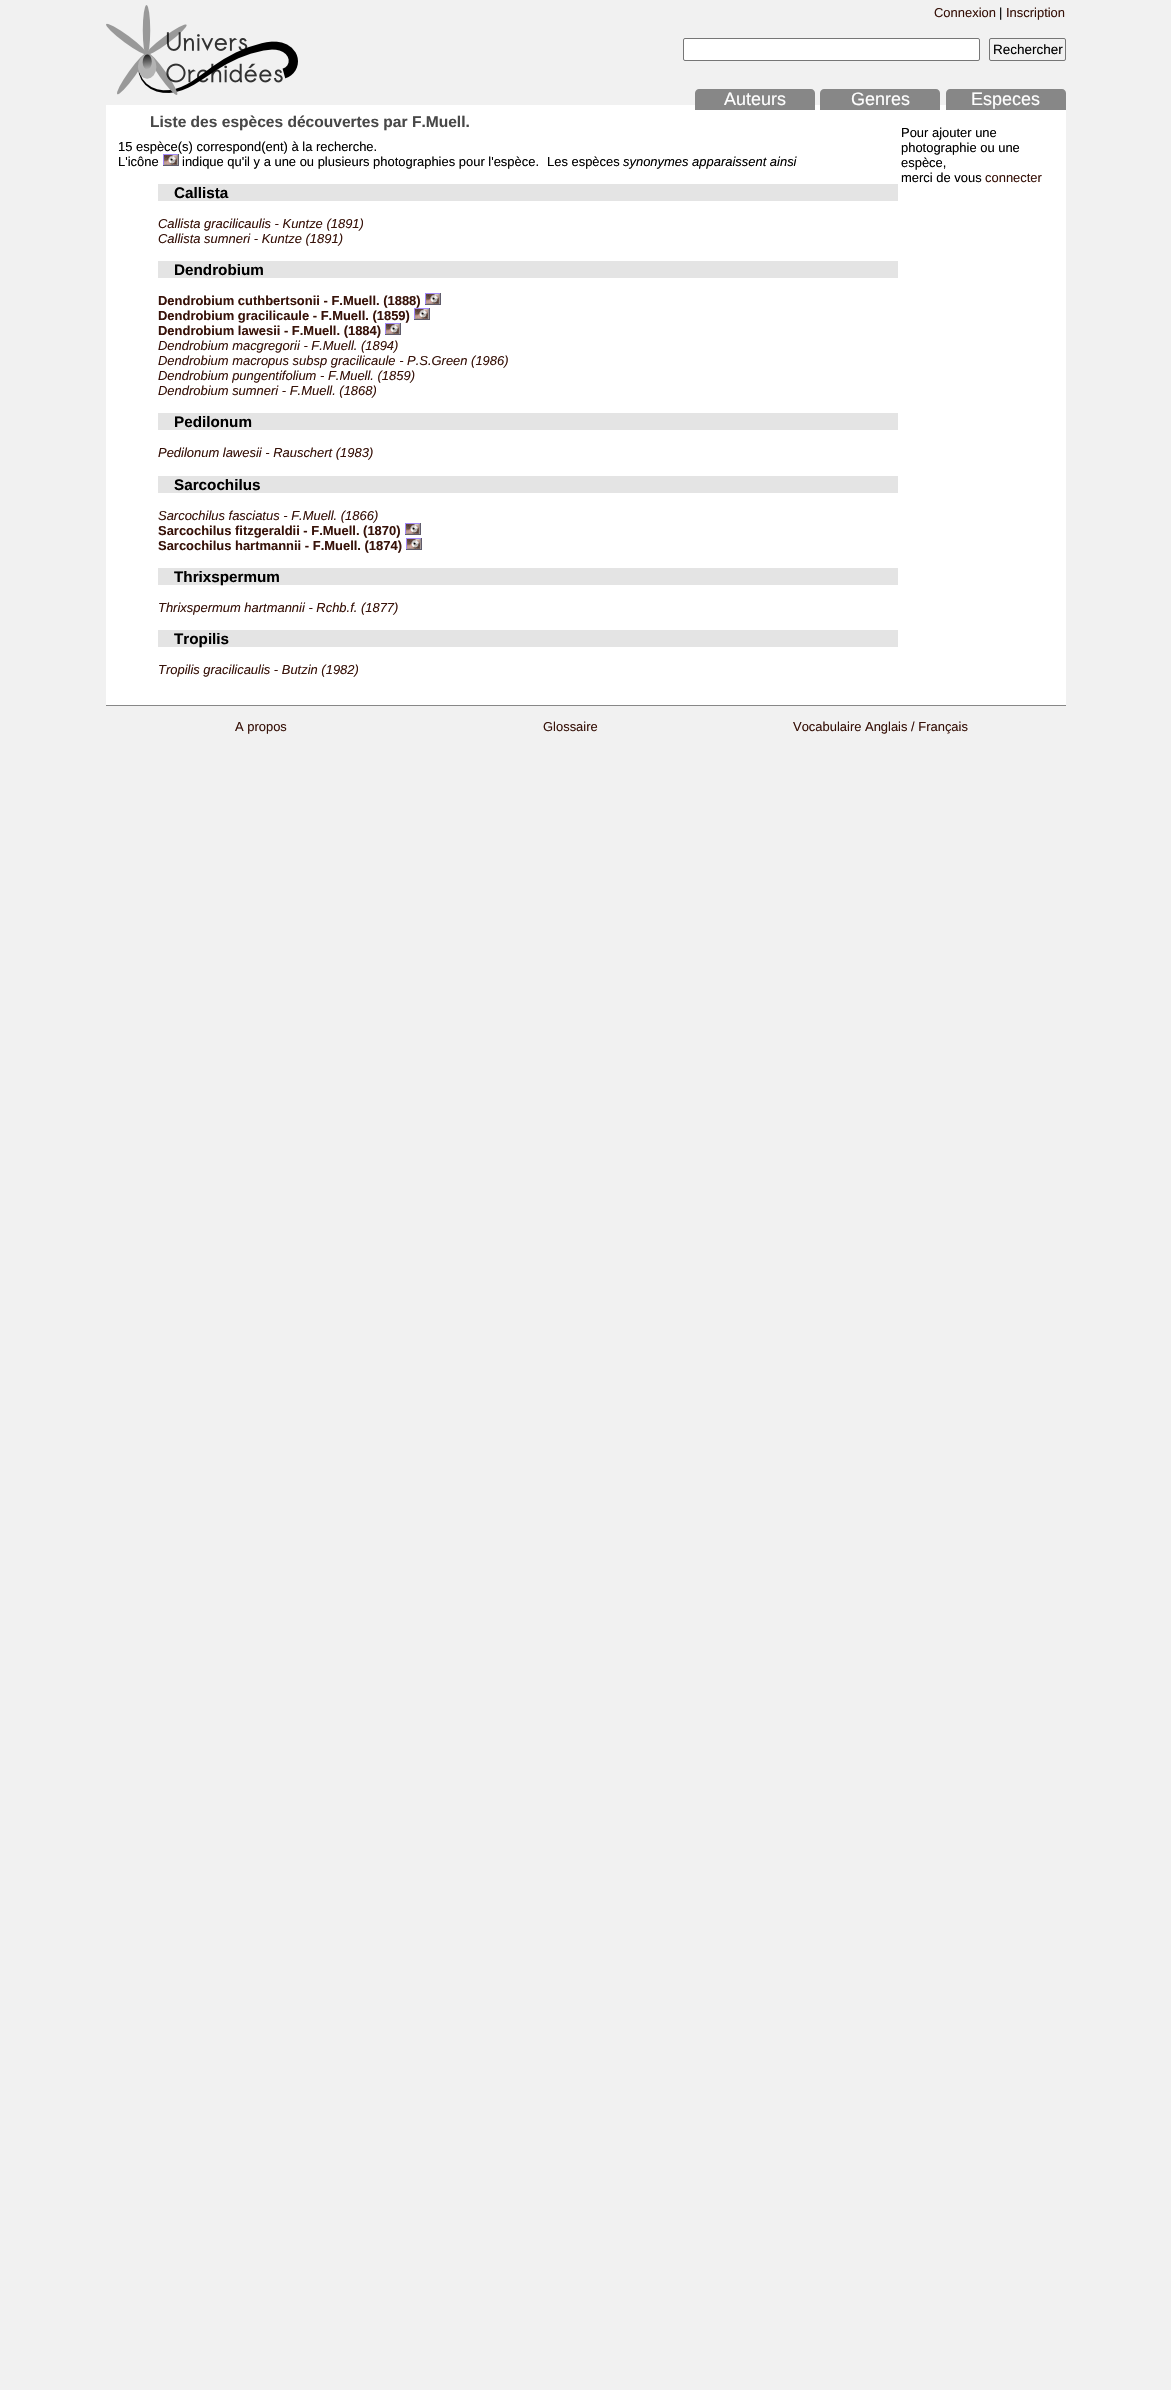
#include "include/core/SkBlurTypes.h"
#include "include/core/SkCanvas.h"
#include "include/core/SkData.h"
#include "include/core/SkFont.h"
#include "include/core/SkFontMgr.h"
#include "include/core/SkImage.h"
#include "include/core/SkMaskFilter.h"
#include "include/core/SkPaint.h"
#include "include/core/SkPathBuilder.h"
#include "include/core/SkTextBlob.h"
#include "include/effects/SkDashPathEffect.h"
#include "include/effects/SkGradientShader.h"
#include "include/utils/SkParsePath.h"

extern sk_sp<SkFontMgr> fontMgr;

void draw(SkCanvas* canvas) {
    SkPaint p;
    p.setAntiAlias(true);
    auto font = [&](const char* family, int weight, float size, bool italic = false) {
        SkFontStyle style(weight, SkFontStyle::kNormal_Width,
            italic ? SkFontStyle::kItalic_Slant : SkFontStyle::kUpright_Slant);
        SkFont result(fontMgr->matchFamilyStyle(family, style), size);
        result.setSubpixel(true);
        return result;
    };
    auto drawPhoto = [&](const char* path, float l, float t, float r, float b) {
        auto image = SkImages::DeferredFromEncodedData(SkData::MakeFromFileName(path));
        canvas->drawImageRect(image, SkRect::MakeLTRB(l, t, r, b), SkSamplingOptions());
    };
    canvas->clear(0xFFF1F1F1);
    drawPhoto("media/1.png", 106, 5, 298, 95);
    auto font1 = font("Liberation Sans", 400, 12.95f);
    p.setColor(0xFF371209);
    canvas->drawString("Connexion", 934, 17, font1, p);
    p.setColor(0xFF000000);
    canvas->drawString("|", 999, 17, font1, p);
    p.setColor(0xFF371209);
    canvas->drawString("Inscription", 1006, 17, font1, p);
    p.setColor(0xFFFFFFFF);
    canvas->drawRoundRect(SkRect::MakeLTRB(683.5f, 38.5f, 979.5f, 60.5f), 1.5f, 1.5f, p);
    p.setStyle(SkPaint::kStroke_Style);
    p.setStrokeWidth(1);
    p.setColor(0xFF767676);
    canvas->drawRoundRect(SkRect::MakeLTRB(683.5f, 38.5f, 979.5f, 60.5f), 1.5f, 1.5f, p);
    canvas->drawRoundRect(SkRect::MakeLTRB(989.5f, 38.5f, 1065.5f, 60.5f), 1.5f, 1.5f, p);
    auto font2 = font("Liberation Sans", 400, 13.5f);
    p.setStyle(SkPaint::kFill_Style);
    p.setColor(0xFF000000);
    canvas->drawString("Rechercher", 993, 54, font2, p);
    p.setColor(0xFFFFFFFF);
    canvas->drawRect(SkRect::MakeLTRB(106, 105, 1066, 705), p);
    p.setColor(0xFF878787);
    canvas->drawPath(SkPathBuilder().moveTo(699, 89).lineTo(811, 89).cubicTo(813, 89, 815, 91, 815, 93).lineTo(815, 110).lineTo(695, 110).lineTo(695, 93).cubicTo(695, 91, 697, 89, 699, 89).close().detach(), p);
    auto font3 = font("Liberation Sans", 400, 18);
    p.setColor(0xFFFFFFFF);
    canvas->drawString("Auteurs", 724, 105, font3, p);
    p.setColor(0xFF878787);
    canvas->drawPath(SkPathBuilder().moveTo(824, 89).lineTo(936, 89).cubicTo(938, 89, 940, 91, 940, 93).lineTo(940, 110).lineTo(820, 110).lineTo(820, 93).cubicTo(820, 91, 822, 89, 824, 89).close().detach(), p);
    p.setColor(0xFFFFFFFF);
    canvas->drawString("Genres", 851, 105, font3, p);
    p.setColor(0xFF878787);
    canvas->drawPath(SkPathBuilder().moveTo(950, 89).lineTo(1062, 89).cubicTo(1064, 89, 1066, 91, 1066, 93).lineTo(1066, 110).lineTo(946, 110).lineTo(946, 93).cubicTo(946, 91, 948, 89, 950, 89).close().detach(), p);
    p.setColor(0xFFFFFFFF);
    canvas->drawString("Especes", 971, 105, font3, p);
    auto font4 = font("Liberation Sans", 700, 15.55f);
    p.setColor(0xFF484848);
    canvas->drawString("Liste des espèces découvertes par F.Muell.", 150, 127, font4, p);
    p.setColor(0xFF000000);
    canvas->drawString("15 espèce(s) correspond(ent) à la recherche.", 118, 151, font1, p);
    canvas->drawString("L'icône", 118, 166, font1, p);
    drawPhoto("media/2.png", 163, 154, 179, 166);
    canvas->drawString("indique qu'il y a une ou plusieurs photographies pour l'espèce.", 182, 166, font1, p);
    canvas->drawString("Les espèces", 547, 166, font1, p);
    auto font5 = font("Liberation Sans", 400, 12.95f, true);
    canvas->drawString("synonymes apparaissent ainsi", 623, 166, font5, p);
    p.setColor(0xFFE4E4E4);
    canvas->drawRect(SkRect::MakeLTRB(158, 184, 898, 201), p);
    auto font6 = font("Liberation Sans", 700, 15.25f);
    p.setColor(0xFF000000);
    canvas->drawString("Callista", 174, 198, font6, p);
    p.setColor(0xFF371209);
    canvas->drawString("Callista gracilicaulis - Kuntze (1891)", 158, 228, font5, p);
    canvas->drawString("Callista sumneri - Kuntze (1891)", 158, 243, font5, p);
    p.setColor(0xFFE4E4E4);
    canvas->drawRect(SkRect::MakeLTRB(158, 261, 898, 278), p);
    p.setColor(0xFF000000);
    canvas->drawString("Dendrobium", 174, 275, font6, p);
    auto font7 = font("Liberation Sans", 700, 12.95f);
    p.setColor(0xFF371209);
    canvas->drawString("Dendrobium cuthbertsonii - F.Muell. (1888)", 158, 305, font7, p);
    drawPhoto("media/2.png", 425, 293, 441, 305);
    canvas->drawString("Dendrobium gracilicaule - F.Muell. (1859)", 158, 320, font7, p);
    drawPhoto("media/2.png", 414, 308, 430, 320);
    canvas->drawString("Dendrobium lawesii - F.Muell. (1884)", 158, 335, font7, p);
    drawPhoto("media/2.png", 385, 323, 401, 335);
    {
        const struct { const char* s; float x, y; } items[] = {
            {"Dendrobium macgregorii - F.Muell. (1894)", 158, 350},
            {"Dendrobium macropus subsp gracilicaule - P.S.Green (1986)", 158, 365},
            {"Dendrobium pungentifolium - F.Muell. (1859)", 158, 380},
            {"Dendrobium sumneri - F.Muell. (1868)", 158, 395},
        };
        for (auto [s, x, y] : items) {
            canvas->drawString(s, x, y, font5, p);
        }
    }
    p.setColor(0xFFE4E4E4);
    canvas->drawRect(SkRect::MakeLTRB(158, 413, 898, 430), p);
    p.setColor(0xFF000000);
    canvas->drawString("Pedilonum", 174, 427, font6, p);
    p.setColor(0xFF371209);
    canvas->drawString("Pedilonum lawesii - Rauschert (1983)", 158, 457, font5, p);
    p.setColor(0xFFE4E4E4);
    canvas->drawRect(SkRect::MakeLTRB(158, 476, 898, 493), p);
    p.setColor(0xFF000000);
    canvas->drawString("Sarcochilus", 174, 490, font6, p);
    p.setColor(0xFF371209);
    canvas->drawString("Sarcochilus fasciatus - F.Muell. (1866)", 158, 520, font5, p);
    canvas->drawString("Sarcochilus fitzgeraldii - F.Muell. (1870)", 158, 535, font7, p);
    drawPhoto("media/2.png", 405, 523, 421, 535);
    canvas->drawString("Sarcochilus hartmannii - F.Muell. (1874)", 158, 550, font7, p);
    drawPhoto("media/2.png", 406, 538, 422, 550);
    p.setColor(0xFFE4E4E4);
    canvas->drawRect(SkRect::MakeLTRB(158, 568, 898, 585), p);
    p.setColor(0xFF000000);
    canvas->drawString("Thrixspermum", 174, 582, font6, p);
    p.setColor(0xFF371209);
    canvas->drawString("Thrixspermum hartmannii - Rchb.f. (1877)", 158, 612, font5, p);
    p.setColor(0xFFE4E4E4);
    canvas->drawRect(SkRect::MakeLTRB(158, 630, 898, 647), p);
    p.setColor(0xFF000000);
    canvas->drawString("Tropilis", 174, 644, font6, p);
    p.setColor(0xFF371209);
    canvas->drawString("Tropilis gracilicaulis - Butzin (1982)", 158, 674, font5, p);
    p.setColor(0xFF000000);
    {
        const struct { const char* s; float x, y; } items[] = {
            {"Pour ajouter une", 901, 137},
            {"photographie ou une", 901, 152},
            {"espèce,", 901, 167},
            {"merci de vous", 901, 182},
        };
        for (auto [s, x, y] : items) {
            canvas->drawString(s, x, y, font1, p);
        }
    }
    p.setColor(0xFF371209);
    canvas->drawString("connecter", 985, 182, font1, p);
    p.setColor(0xFF878787);
    canvas->drawRect(SkRect::MakeLTRB(106, 705, 1066, 706), p);
    p.setColor(0xFF371209);
    {
        const struct { const char* s; float x, y; } items[] = {
            {"A propos", 235, 731},
            {"Glossaire", 543, 731},
            {"Vocabulaire Anglais / Français", 793, 731},
        };
        for (auto [s, x, y] : items) {
            canvas->drawString(s, x, y, font1, p);
        }
    }
}
